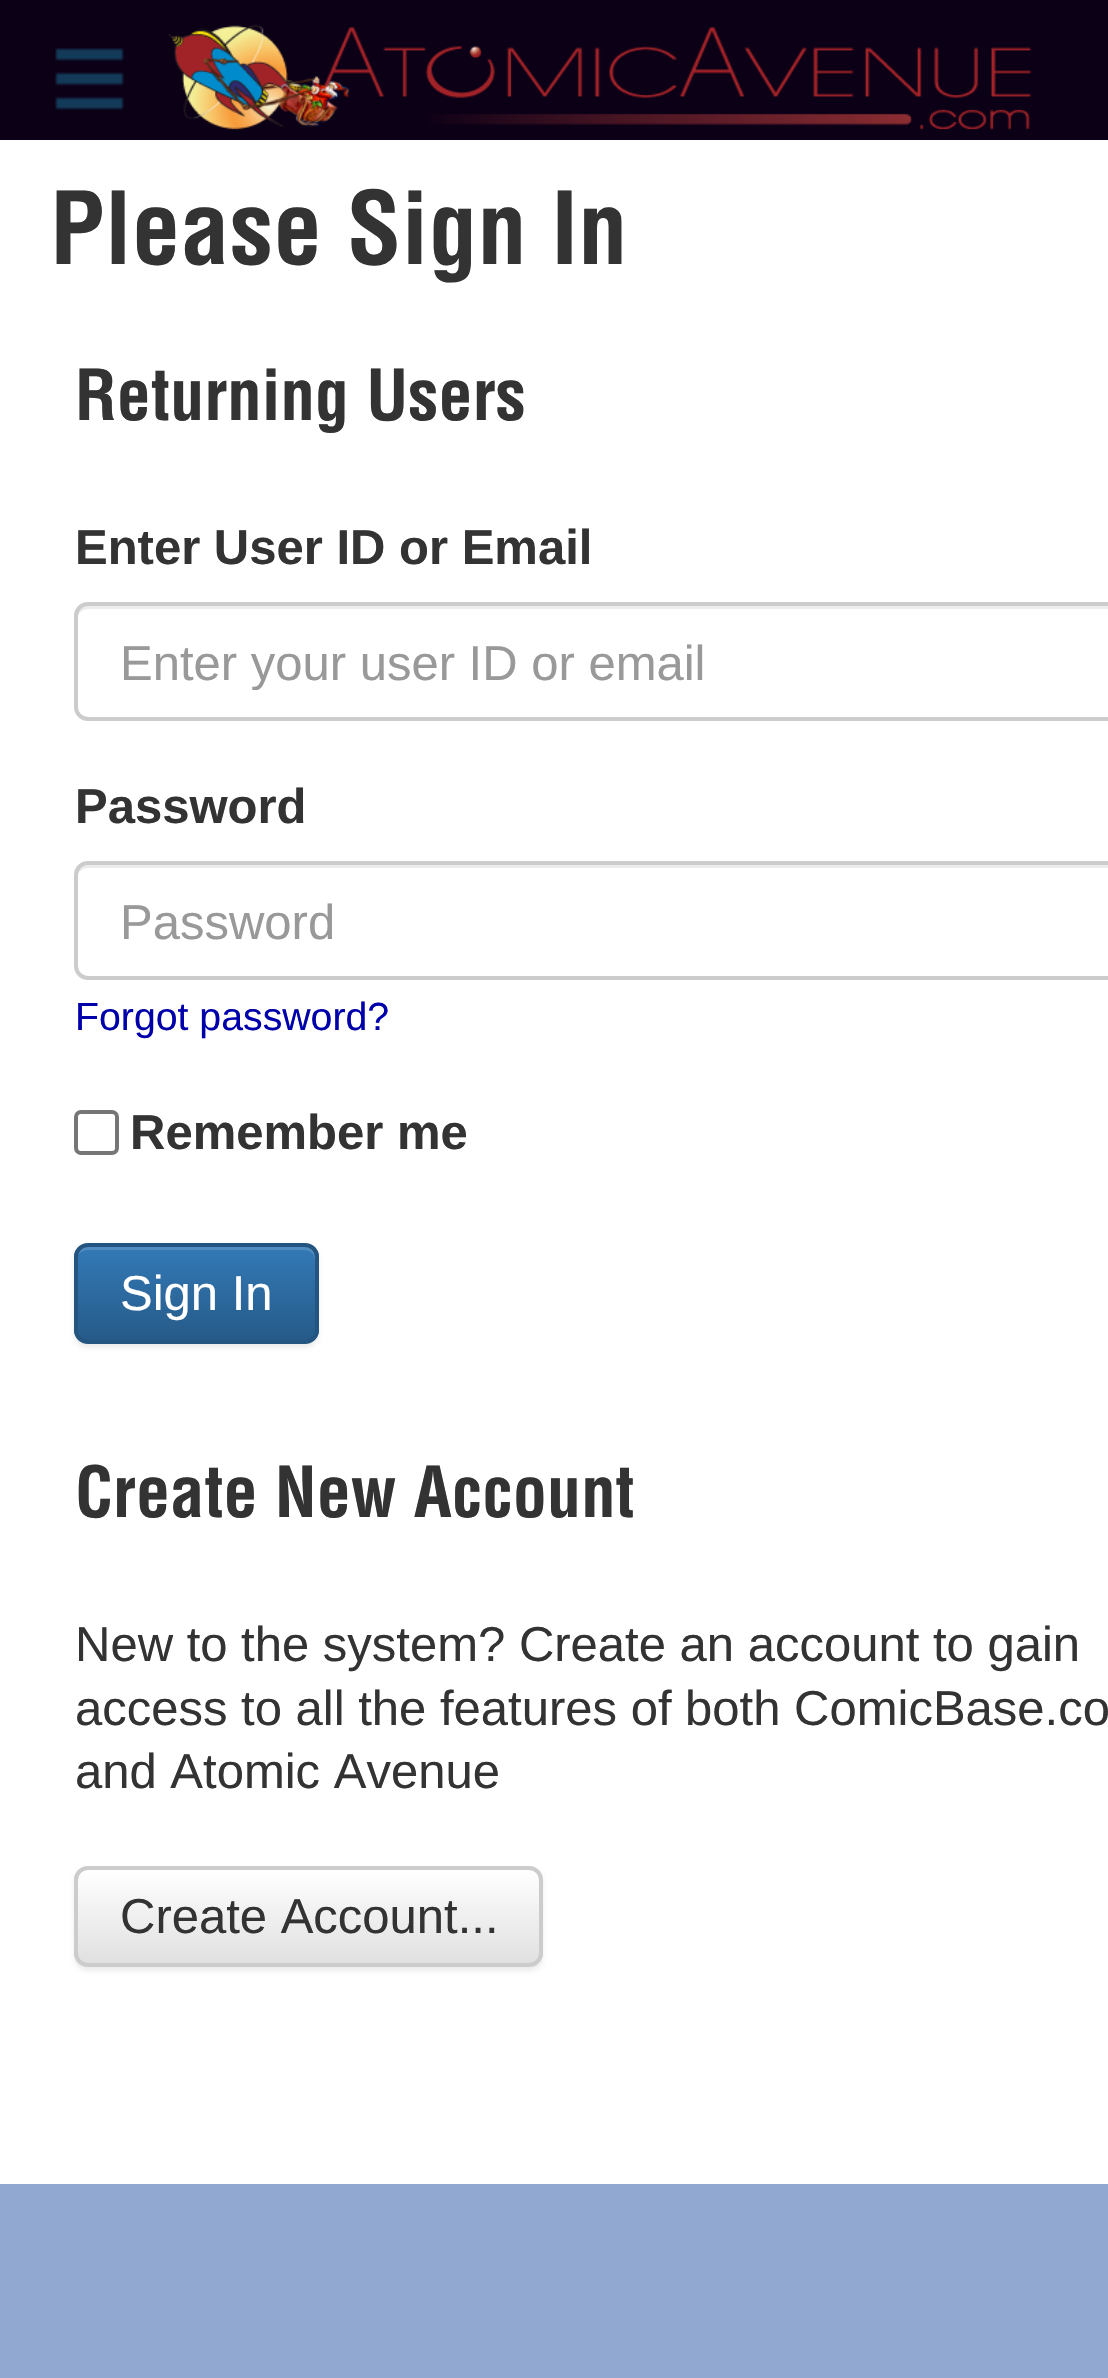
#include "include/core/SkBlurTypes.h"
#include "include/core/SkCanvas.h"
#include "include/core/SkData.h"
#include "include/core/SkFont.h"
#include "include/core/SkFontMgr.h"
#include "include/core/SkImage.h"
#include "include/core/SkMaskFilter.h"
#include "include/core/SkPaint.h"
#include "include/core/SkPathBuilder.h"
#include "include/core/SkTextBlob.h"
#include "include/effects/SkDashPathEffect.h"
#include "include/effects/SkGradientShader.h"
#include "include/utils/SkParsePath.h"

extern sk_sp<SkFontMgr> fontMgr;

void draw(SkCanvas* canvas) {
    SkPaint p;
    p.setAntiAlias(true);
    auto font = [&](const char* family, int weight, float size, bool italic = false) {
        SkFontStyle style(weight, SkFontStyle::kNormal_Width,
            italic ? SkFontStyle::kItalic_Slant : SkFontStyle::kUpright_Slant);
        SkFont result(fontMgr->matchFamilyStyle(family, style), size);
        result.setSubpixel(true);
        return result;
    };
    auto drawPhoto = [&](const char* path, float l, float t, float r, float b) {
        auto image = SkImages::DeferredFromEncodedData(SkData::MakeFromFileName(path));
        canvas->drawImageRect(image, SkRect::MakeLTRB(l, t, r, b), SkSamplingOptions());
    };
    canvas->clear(0xFF91A8D1);
    p.setColor(0xFFFFFFFF);
    canvas->drawRect(SkRect::MakeLTRB(0, 140, 1108, 2184), p);
    p.setColor(0xFF0C0016);
    canvas->drawRect(SkRect::MakeLTRB(0, 0, 1108, 140), p);
    drawPhoto("media/1.png", 55, 48, 124, 110);
    drawPhoto("media/2.png", 167, 24, 1032, 130);
    auto font1 = font("Helvetica", 700, 98);
    p.setColor(0xFF333333);
    canvas->drawString("Please Sign In", 50, 264, font1, p);
    auto font2 = font("Helvetica", 700, 68.5f);
    canvas->drawString("Returning Users", 75, 420, font2, p);
    auto font3 = font("Liberation Sans", 700, 49);
    canvas->drawString("Enter User ID or Email", 75, 564, font3, p);
    p.setColor(0xFFECECEC);
    canvas->drawPath(SkPathBuilder().moveTo(88, 609).lineTo(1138, 609).cubicTo(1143, 609, 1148, 614, 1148, 620).cubicTo(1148, 613, 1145, 606, 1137, 606).lineTo(88, 606).cubicTo(80, 606, 77, 613, 77, 620).cubicTo(77, 614, 82, 609, 88, 609).close().detach(), p);
    p.setStyle(SkPaint::kStroke_Style);
    p.setStrokeWidth(4);
    p.setColor(0xFFCCCCCC);
    canvas->drawRoundRect(SkRect::MakeLTRB(76, 604, 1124, 719), 12, 12, p);
    canvas->save();
    canvas->clipRect(SkRect::MakeLTRB(119, 634, 1106, 690));
    auto font4 = font("Liberation Sans", 400, 49);
    p.setStyle(SkPaint::kFill_Style);
    p.setColor(0xFF999999);
    canvas->drawString("Enter your user ID or email", 120, 680, font4, p);
    canvas->restore();
    p.setColor(0xFF333333);
    canvas->drawString("Password", 75, 823, font3, p);
    p.setColor(0xFFECECEC);
    canvas->drawPath(SkPathBuilder().moveTo(88, 868).lineTo(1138, 868).cubicTo(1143, 868, 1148, 873, 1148, 878).lineTo(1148, 876).cubicTo(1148, 870, 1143, 865, 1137, 865).lineTo(88, 865).cubicTo(82, 865, 77, 870, 77, 876).lineTo(77, 878).cubicTo(77, 873, 82, 868, 88, 868).close().detach(), p);
    p.setStyle(SkPaint::kStroke_Style);
    p.setColor(0xFFCCCCCC);
    canvas->drawRoundRect(SkRect::MakeLTRB(76, 863, 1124, 978), 12, 12, p);
    p.setStyle(SkPaint::kFill_Style);
    p.setColor(0xFF999999);
    canvas->drawString("Password", 120, 939, font4, p);
    auto font5 = font("Liberation Sans", 400, 39.25f);
    p.setColor(0xFF0000AA);
    canvas->drawString("Forgot password?", 75, 1030, font5, p);
    p.setStyle(SkPaint::kStroke_Style);
    p.setColor(0xFF767676);
    canvas->drawRoundRect(SkRect::MakeLTRB(76, 1112, 117, 1153), 5, 5, p);
    p.setStyle(SkPaint::kFill_Style);
    p.setColor(0xFF333333);
    canvas->drawString("Remember me", 130, 1149, font3, p);
    p.setColor(0x12000000);
    p.setMaskFilter(SkMaskFilter::MakeBlur(kNormal_SkBlurStyle, 2));
    canvas->drawRoundRect(SkRect::MakeLTRB(74, 1246, 319, 1348), 14, 14, p);
    p.setMaskFilter(nullptr);
    canvas->save();
    canvas->clipPath(SkPathBuilder().moveTo(88, 1243).lineTo(305, 1243).cubicTo(312.5f, 1243, 319, 1249.5f, 319, 1257).lineTo(319, 1330).cubicTo(319, 1337.5f, 312.5f, 1344, 305, 1344).lineTo(88, 1344).cubicTo(80.5f, 1344, 74, 1337.5f, 74, 1330).lineTo(74, 1257).cubicTo(74, 1249.5f, 80.5f, 1243, 88, 1243).close().detach(), true);
    {
        const SkColor colors[] = {0xFF337AB7, 0xFF265A88};
        const float stops[] = {0, 1};
        const SkPoint ends[] = {{196, 1246}, {196, 1341}};
        p.setShader(SkGradientShader::MakeLinear(ends, colors, stops, 2, SkTileMode::kClamp));
        p.setAlpha(255);
    }
    canvas->drawRect(SkRect::MakeLTRB(74, 1246, 319, 1341), p);
    canvas->restore();
    p.setShader(nullptr);
    p.setColor(0x26FFFFFF);
    canvas->drawPath(SkPathBuilder().moveTo(88, 1250).lineTo(304, 1250).cubicTo(310, 1250, 315, 1254, 315, 1260).lineTo(315, 1257).cubicTo(315, 1251, 310, 1246, 304, 1246).lineTo(88, 1246).cubicTo(82, 1246, 77, 1251, 77, 1257).lineTo(77, 1260).cubicTo(77, 1254, 82, 1250, 88, 1250).close().detach(), p);
    p.setStyle(SkPaint::kStroke_Style);
    p.setColor(0xFF245580);
    canvas->drawRoundRect(SkRect::MakeLTRB(76, 1245, 317, 1342), 12, 12, p);
    p.setStyle(SkPaint::kFill_Style);
    p.setColor(0xFFFFFFFF);
    canvas->drawString("Sign In", 120, 1310, font4, p);
    p.setColor(0xFF333333);
    canvas->drawString("Create New Account", 75, 1517, font2, p);
    {
        const struct { const char* s; float x, y; } items[] = {
            {"New to the system? Create an account to gain", 75, 1661},
            {"access to all the features of both ComicBase.co", 75, 1725},
            {"and Atomic Avenue", 75, 1788},
        };
        for (auto [s, x, y] : items) {
            canvas->drawString(s, x, y, font4, p);
        }
    }
    p.setColor(0x12000000);
    p.setMaskFilter(SkMaskFilter::MakeBlur(kNormal_SkBlurStyle, 2));
    canvas->drawRoundRect(SkRect::MakeLTRB(74, 1869, 543, 1971), 14, 14, p);
    p.setMaskFilter(nullptr);
    canvas->save();
    canvas->clipPath(SkPathBuilder().moveTo(88, 1866).lineTo(529, 1866).cubicTo(536.5f, 1866, 543, 1872.5f, 543, 1880).lineTo(543, 1953).cubicTo(543, 1960.5f, 536.5f, 1967, 529, 1967).lineTo(88, 1967).cubicTo(80.5f, 1967, 74, 1960.5f, 74, 1953).lineTo(74, 1880).cubicTo(74, 1872.5f, 80.5f, 1866, 88, 1866).close().detach(), true);
    {
        const SkColor colors[] = {0xFFFFFFFF, 0xFFE0E0E0};
        const float stops[] = {0, 1};
        const SkPoint ends[] = {{308, 1869}, {308, 1964}};
        p.setShader(SkGradientShader::MakeLinear(ends, colors, stops, 2, SkTileMode::kClamp));
        p.setAlpha(255);
    }
    canvas->drawRect(SkRect::MakeLTRB(74, 1869, 543, 1964), p);
    canvas->restore();
    p.setStyle(SkPaint::kStroke_Style);
    p.setShader(nullptr);
    p.setColor(0xFFCCCCCC);
    canvas->drawRoundRect(SkRect::MakeLTRB(76, 1868, 541, 1965), 12, 12, p);
    p.setStyle(SkPaint::kFill_Style);
    p.setColor(0xFF333333);
    canvas->drawString("Create Account...", 120, 1933, font4, p);
}
